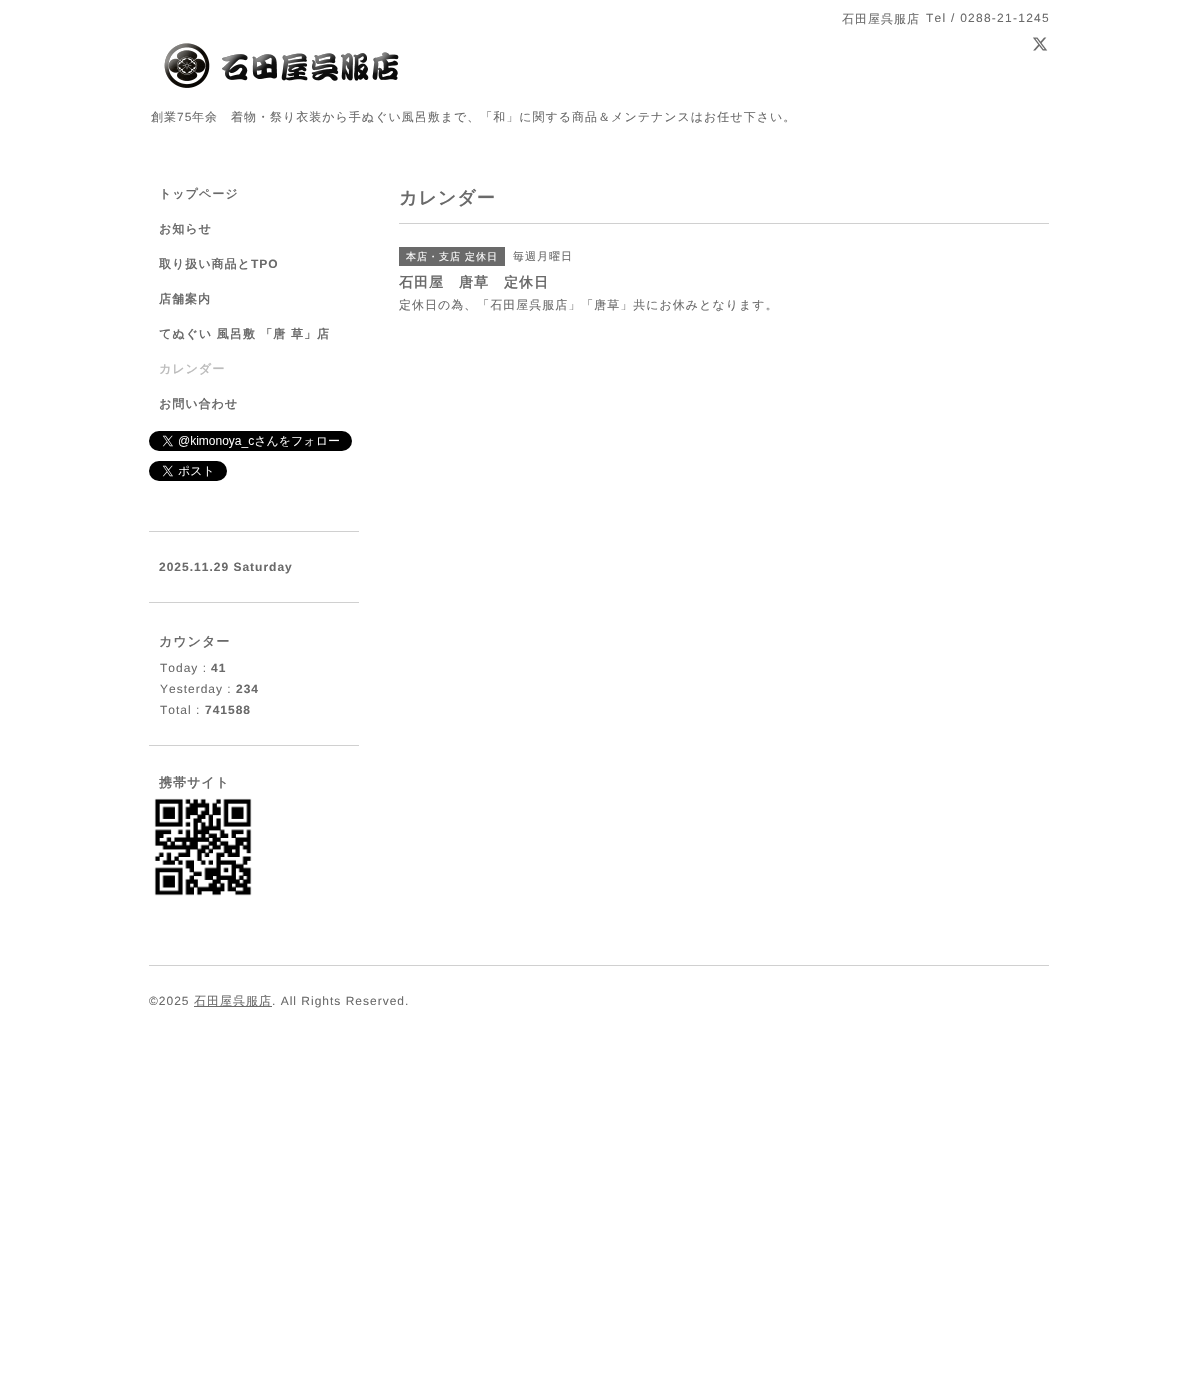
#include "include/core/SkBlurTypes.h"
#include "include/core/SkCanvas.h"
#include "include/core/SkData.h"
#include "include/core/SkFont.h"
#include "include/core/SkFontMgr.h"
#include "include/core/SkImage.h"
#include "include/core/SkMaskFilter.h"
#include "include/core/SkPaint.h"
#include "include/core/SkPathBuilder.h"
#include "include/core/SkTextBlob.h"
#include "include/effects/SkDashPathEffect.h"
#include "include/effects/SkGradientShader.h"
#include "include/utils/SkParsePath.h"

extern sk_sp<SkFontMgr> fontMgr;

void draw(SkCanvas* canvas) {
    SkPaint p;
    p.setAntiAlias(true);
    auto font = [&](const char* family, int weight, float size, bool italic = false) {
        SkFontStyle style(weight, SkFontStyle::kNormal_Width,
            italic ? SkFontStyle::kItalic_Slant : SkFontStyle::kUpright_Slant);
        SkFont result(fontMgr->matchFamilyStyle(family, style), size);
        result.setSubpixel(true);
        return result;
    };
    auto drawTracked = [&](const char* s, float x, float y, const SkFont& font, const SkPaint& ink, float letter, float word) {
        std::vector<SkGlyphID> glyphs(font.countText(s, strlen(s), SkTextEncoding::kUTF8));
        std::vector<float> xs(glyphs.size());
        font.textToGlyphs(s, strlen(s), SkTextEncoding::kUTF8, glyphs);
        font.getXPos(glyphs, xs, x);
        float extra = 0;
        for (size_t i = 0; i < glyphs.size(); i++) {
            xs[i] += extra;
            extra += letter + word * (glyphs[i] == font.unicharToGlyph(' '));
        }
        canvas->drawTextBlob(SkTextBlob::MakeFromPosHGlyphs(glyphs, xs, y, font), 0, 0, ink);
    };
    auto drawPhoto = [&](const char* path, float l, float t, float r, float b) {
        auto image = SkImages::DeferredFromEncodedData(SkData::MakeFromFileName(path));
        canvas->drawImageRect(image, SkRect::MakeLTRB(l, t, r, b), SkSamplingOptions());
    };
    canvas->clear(0xFFFFFFFF);
    auto font1 = font("WenQuanYi Zen Hei", 500, 12);
    p.setColor(0xFF6A6A6A);
    drawTracked("石田屋呉服店", 842, 23, font1, p, 1, 0);
    auto font2 = font("Liberation Sans", 400, 12);
    drawTracked("Tel / 0288-21-1245", 926, 22, font2, p, 1.25f, 0);
    drawPhoto("media/1.png", 1033, 37, 1048, 51);
    drawPhoto("media/2.png", 164, 43, 399, 88);
    drawTracked("創業", 151, 121, font1, p, 1, 0);
    drawTracked("75", 177, 121, font2, p, 1, 0);
    drawTracked("年余　着物・祭り衣装から手ぬぐい風呂敷まで、「和」に関する商品＆メンテナンスはお任せ下さい。", 192, 121, font1, p, 1, 0);
    auto font3 = font("WenQuanYi Zen Hei", 700, 12);
    {
        const struct { const char* s; float x, y; } items[] = {
            {"トップページ", 159, 198},
            {"お知らせ", 159, 233},
            {"取り扱い商品と", 159, 268},
        };
        for (auto [s, x, y] : items) {
            drawTracked(s, x, y, font3, p, 1, 0);
        }
    }
    auto font4 = font("Liberation Sans", 700, 12);
    drawTracked("TPO", 251, 268, font4, p, 1, 0);
    drawTracked("店舗案内", 159, 303, font3, p, 1, 0);
    drawTracked("てぬぐい 風呂敷 「唐 草」店", 159, 338, font3, p, 1, 0);
    p.setColor(0xFFBCBCBC);
    drawTracked("カレンダー", 159, 373, font3, p, 1, 0);
    p.setColor(0xFF6A6A6A);
    drawTracked("お問い合わせ", 159, 408, font3, p, 1, 0);
    drawPhoto("media/3.png", 149, 431, 352, 451);
    drawPhoto("media/4.png", 149, 461, 227, 481);
    auto font5 = font("WenQuanYi Zen Hei", 700, 18);
    drawTracked("カレンダー", 399, 204, font5, p, 1, 0);
    p.setColor(0xFFD0D0D0);
    canvas->drawRect(SkRect::MakeLTRB(399, 223, 1049, 224), p);
    p.setColor(0xFF6A6A6A);
    canvas->drawRect(SkRect::MakeLTRB(399, 247, 505, 266), p);
    auto font6 = font("WenQuanYi Zen Hei", 500, 10);
    p.setColor(0xFFFFFFFF);
    drawTracked("本店・支店 定休日", 406, 260, font6, p, 1, 0);
    auto font7 = font("WenQuanYi Zen Hei", 500, 11);
    p.setColor(0xFF6A6A6A);
    drawTracked("毎週月曜日", 513, 260, font7, p, 1, 0);
    auto font8 = font("WenQuanYi Zen Hei", 700, 14);
    drawTracked("石田屋　唐草　定休日", 399, 287, font8, p, 1, 0);
    drawTracked("定休日の為、「石田屋呉服店」「唐草」共にお休みとなります。", 399, 309, font1, p, 1, 0);
    p.setColor(0xFFD0D0D0);
    canvas->drawRect(SkRect::MakeLTRB(149, 531, 359, 532), p);
    canvas->drawRect(SkRect::MakeLTRB(149, 602, 359, 603), p);
    p.setColor(0xFF6A6A6A);
    drawTracked("2025.11.29 Saturday", 159, 571, font4, p, 1, 0);
    p.setColor(0xFFD0D0D0);
    canvas->drawRect(SkRect::MakeLTRB(149, 745, 359, 746), p);
    auto font9 = font("WenQuanYi Zen Hei", 700, 13);
    p.setColor(0xFF6A6A6A);
    drawTracked("カウンター", 159, 646, font9, p, 1, 0);
    drawTracked("Today :", 160, 672, font2, p, 1, 0);
    drawTracked("41", 211, 672, font4, p, 1, 0);
    drawTracked("Yesterday :", 160, 693, font2, p, 1, 0);
    drawTracked("234", 236, 693, font4, p, 1, 0);
    drawTracked("Total :", 160, 714, font2, p, 1, 0);
    drawTracked("741588", 205, 714, font4, p, 1, 0);
    drawTracked("携帯サイト", 159, 787, font9, p, 1, 0);
    drawPhoto("media/5.png", 154, 798, 252, 896);
    p.setColor(0xFFD0D0D0);
    canvas->drawRect(SkRect::MakeLTRB(149, 965, 1049, 966), p);
    p.setColor(0xFF6A6A6A);
    drawTracked("©2025", 149, 1005, font2, p, 1, 0);
    canvas->drawRect(SkRect::MakeLTRB(194, 1006, 272, 1007), p);
    drawTracked("石田屋呉服店", 194, 1005, font1, p, 1, 0);
    drawTracked(". All Rights Reserved.", 272, 1005, font2, p, 1, 0);
}
